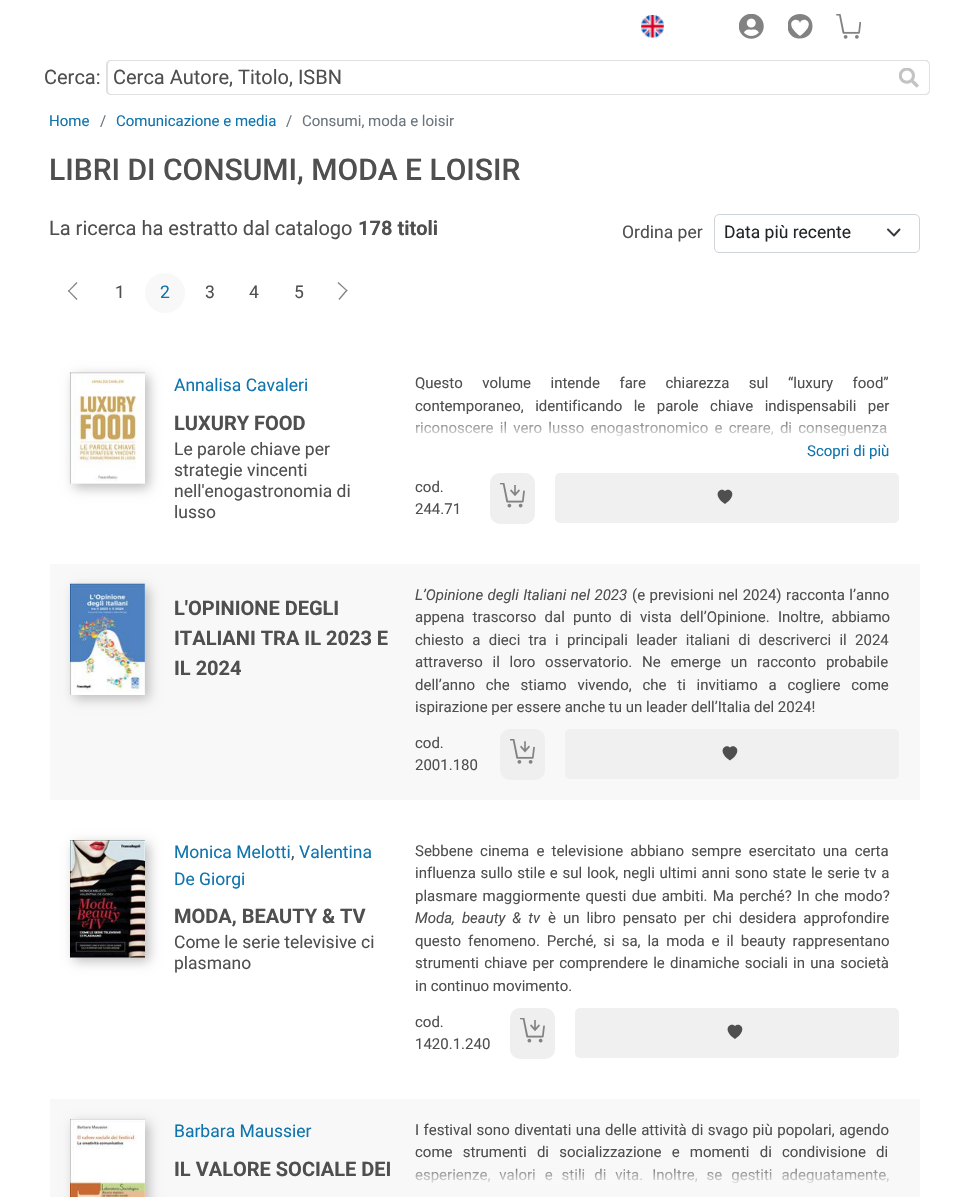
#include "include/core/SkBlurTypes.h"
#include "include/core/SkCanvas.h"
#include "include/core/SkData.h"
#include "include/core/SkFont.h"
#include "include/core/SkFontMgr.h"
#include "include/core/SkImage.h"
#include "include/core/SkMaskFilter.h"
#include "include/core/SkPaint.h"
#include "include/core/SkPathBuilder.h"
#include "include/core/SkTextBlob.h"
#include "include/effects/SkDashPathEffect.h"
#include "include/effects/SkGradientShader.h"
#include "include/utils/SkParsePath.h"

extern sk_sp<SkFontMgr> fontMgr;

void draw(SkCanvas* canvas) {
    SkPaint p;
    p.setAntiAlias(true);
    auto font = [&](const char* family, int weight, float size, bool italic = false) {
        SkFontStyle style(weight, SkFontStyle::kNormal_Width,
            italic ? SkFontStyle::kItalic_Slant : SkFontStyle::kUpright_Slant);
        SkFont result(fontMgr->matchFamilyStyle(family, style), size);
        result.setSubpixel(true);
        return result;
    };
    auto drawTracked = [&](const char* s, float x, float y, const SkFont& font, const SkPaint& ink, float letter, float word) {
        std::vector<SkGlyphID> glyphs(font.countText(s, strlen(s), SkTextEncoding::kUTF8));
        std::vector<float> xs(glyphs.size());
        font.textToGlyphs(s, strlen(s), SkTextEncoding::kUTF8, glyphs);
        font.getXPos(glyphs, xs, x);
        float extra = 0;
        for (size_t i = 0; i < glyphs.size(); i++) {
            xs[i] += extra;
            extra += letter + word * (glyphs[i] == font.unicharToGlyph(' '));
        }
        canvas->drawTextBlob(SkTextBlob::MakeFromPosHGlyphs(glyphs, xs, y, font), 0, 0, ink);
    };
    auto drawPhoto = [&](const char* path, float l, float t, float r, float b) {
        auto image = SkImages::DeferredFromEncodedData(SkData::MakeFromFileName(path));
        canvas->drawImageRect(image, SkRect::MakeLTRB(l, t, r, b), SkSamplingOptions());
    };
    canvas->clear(0xFFFFFFFF);
    drawPhoto("media/1.png", 641, 15, 664, 38);
    drawPhoto("media/2.png", 739, 14, 764, 39);
    canvas->save();
    canvas->clipRect(SkRect::MakeLTRB(788, 14, 813, 39));
    p.setColor(0xFF828282);
    canvas->drawPath(SkPathBuilder().moveTo(800, 36).cubicTo(781, 21.5f, 798.5f, 15.5f, 800, 23).cubicTo(801.5f, 15.5f, 819, 21.5f, 800, 36).close().moveTo(812.5f, 26).cubicTo(812.5f, 10, 787.5f, 10, 787.5f, 26).cubicTo(787.5f, 43, 812.5f, 42.5f, 812.5f, 26).close().detach(), p);
    canvas->restore();
    drawPhoto("media/3.png", 836, 14, 861, 39);
    auto font1 = font("Roboto", 400, 20);
    p.setColor(0xFF4F4F4F);
    canvas->drawString("Cerca:", 44, 84, font1, p);
    p.setColor(0xFFE0E0E0);
    canvas->drawPath(SkPathBuilder(SkPathFillType::kEvenOdd).moveTo(111, 60).lineTo(890, 60).lineTo(890, 95).lineTo(111, 95).cubicTo(108, 95, 106, 93, 106, 90).lineTo(106, 65).cubicTo(106, 62, 108, 60, 111, 60).close().moveTo(111, 61).lineTo(890, 61).lineTo(890, 94).lineTo(111, 94).cubicTo(109, 94, 108, 92, 108, 90).lineTo(108, 65).cubicTo(108, 63, 109, 61, 111, 61).close().detach(), p);
    p.setColor(0xFF4F4F4F);
    canvas->drawString("Cerca Autore, Titolo, ISBN", 113, 84, font1, p);
    p.setColor(0xFFE0E0E0);
    canvas->drawPath(SkPathBuilder(SkPathFillType::kEvenOdd).moveTo(890, 60).lineTo(925, 60).cubicTo(928, 60, 930, 62, 930, 65).lineTo(930, 90).cubicTo(930, 93, 928, 95, 925, 95).lineTo(890, 95).close().moveTo(890, 61).lineTo(925, 61).cubicTo(927, 61, 929, 63, 929, 65).lineTo(929, 90).cubicTo(929, 92, 927, 94, 925, 94).lineTo(890, 94).close().detach(), p);
    drawPhoto("media/4.png", 899, 68, 919, 88);
    auto font2 = font("Roboto", 400, 15);
    p.setColor(0xFF1074AD);
    canvas->drawString("Home", 49, 126, font2, p);
    p.setColor(0xFF6C757D);
    canvas->drawString("/", 100, 126, font2, p);
    p.setColor(0xFF1074AD);
    canvas->drawString("Comunicazione e media", 116, 126, font2, p);
    p.setColor(0xFF6C757D);
    canvas->drawString("/", 286, 126, font2, p);
    canvas->drawString("Consumi, moda e loisir", 302, 126, font2, p);
    auto font3 = font("Roboto", 500, 30);
    p.setColor(0xFF4F4F4F);
    canvas->drawString("LIBRI DI CONSUMI, MODA E LOISIR", 49, 180, font3, p);
    canvas->drawString("La ricerca ha estratto dal catalogo", 49, 235, font1, p);
    auto font4 = font("Roboto", 700, 20);
    canvas->drawString("178 titoli", 358, 235, font4, p);
    auto font5 = font("Roboto", 400, 17.5f);
    canvas->drawString("Ordina per", 622, 238, font5, p);
    p.setStyle(SkPaint::kStroke_Style);
    p.setStrokeWidth(1.9f);
    p.setStrokeCap(SkPaint::kRound_Cap);
    p.setStrokeJoin(SkPaint::kRound_Join);
    p.setColor(0xFF343A40);
    canvas->drawPath(SkPathBuilder().moveTo(888, 229.5f).lineTo(894, 235.5f).lineTo(899.5f, 229.5f).detach(), p);
    p.setStrokeWidth(1);
    p.setStrokeCap(SkPaint::kButt_Cap);
    p.setStrokeJoin(SkPaint::kMiter_Join);
    p.setColor(0xFFCED4DA);
    canvas->drawRoundRect(SkRect::MakeLTRB(714.5f, 214.5f, 919.5f, 252.5f), 4.5f, 4.5f, p);
    p.setStyle(SkPaint::kFill_Style);
    p.setColor(0xFF212529);
    canvas->drawString("Data più recente", 724, 238, font5, p);
    p.setColor(0xFF828282);
    canvas->drawPath(SkPathBuilder().moveTo(68.5f, 290).lineTo(77.5f, 299).lineTo(76.5f, 300).lineTo(68, 291).close().detach(), p);
    canvas->drawPath(SkPathBuilder().moveTo(76.5f, 282).lineTo(77.5f, 283).lineTo(68.5f, 292).lineTo(68, 291).close().detach(), p);
    p.setColor(0xFF4F4F4F);
    canvas->drawString("1", 115, 298, font5, p);
    p.setColor(0xFFF8F8F8);
    canvas->drawCircle(165, 293, 20, p);
    p.setColor(0xFF1074AD);
    canvas->drawString("2", 160, 298, font5, p);
    p.setColor(0xFF4F4F4F);
    {
        const struct { const char* s; float x, y; } items[] = {
            {"3", 205, 298},
            {"4", 249, 298},
            {"5", 294, 298},
        };
        for (auto [s, x, y] : items) {
            canvas->drawString(s, x, y, font5, p);
        }
    }
    p.setColor(0xFF828282);
    canvas->drawPath(SkPathBuilder().moveTo(347, 291.5f).lineTo(337.5f, 283).lineTo(338.5f, 282).lineTo(347.5f, 290.5f).close().detach(), p);
    canvas->drawPath(SkPathBuilder().moveTo(339.5f, 300).lineTo(338.5f, 299).lineTo(346.5f, 289.5f).lineTo(347.5f, 290.5f).close().detach(), p);
    p.setColor(0xFFBDBDBD);
    p.setMaskFilter(SkMaskFilter::MakeBlur(kNormal_SkBlurStyle, 5.5f));
    canvas->drawRect(SkRect::MakeLTRB(74, 376, 149, 488), p);
    p.setMaskFilter(nullptr);
    drawPhoto("media/5.png", 70, 372, 145, 484);
    p.setColor(0xFF1074AD);
    canvas->drawString("Annalisa Cavaleri", 174, 391, font5, p);
    p.setColor(0xFF4F4F4F);
    canvas->drawString("LUXURY FOOD", 174, 430, font4, p);
    {
        const struct { const char* s; float x, y; } items[] = {
            {"Le parole chiave per", 174, 455},
            {"strategie vincenti", 174, 476},
            {"nell'enogastronomia di", 174, 497},
            {"lusso", 174, 518},
        };
        for (auto [s, x, y] : items) {
            canvas->drawString(s, x, y, font5, p);
        }
    }
    drawTracked("Questo volume intende fare chiarezza sul “luxury food”", 415, 388, font2, p, 0, 15.75f);
    drawTracked("contemporaneo, identificando le parole chiave indispensabili per", 415, 411, font2, p, 0, 7.75f);
    drawTracked("riconoscere il vero lusso enogastronomico e creare, di conseguenza", 415, 433, font2, p, 0, 2.5f);
    {
        const SkColor colors[] = {0x00FFFFFF, 0xFFFFFFFF};
        const float stops[] = {0, 1};
        const SkPoint ends[] = {{652, 416}, {652, 440}};
        p.setShader(SkGradientShader::MakeLinear(ends, colors, stops, 2, SkTileMode::kClamp));
        p.setAlpha(255);
    }
    canvas->drawRect(SkRect::MakeLTRB(416, 421, 886, 437), p);
    p.setShader(nullptr);
    p.setColor(0xFF1074AD);
    canvas->drawString("Scopri di più", 807, 456, font2, p);
    p.setColor(0xFF4F4F4F);
    canvas->drawString("cod.", 415, 492, font2, p);
    canvas->drawString("244.71", 415, 514, font2, p);
    p.setColor(0xFFEFEFEF);
    canvas->drawRoundRect(SkRect::MakeLTRB(490, 473, 535, 524), 10, 10, p);
    drawPhoto("media/6.png", 500, 483, 525, 508);
    p.setColor(0xFFF0F0F0);
    canvas->drawRoundRect(SkRect::MakeLTRB(555, 473, 899, 523), 5, 5, p);
    p.setColor(0xFF4F4F4F);
    canvas->drawPath(SkPathBuilder().moveTo(725, 491).cubicTo(729.5f, 486.5f, 739, 494.5f, 725, 504).cubicTo(711, 494.5f, 720.5f, 486.5f, 725, 491).close().detach(), p);
    p.setColor(0xFFF8F8F8);
    canvas->drawRect(SkRect::MakeLTRB(50, 564, 920, 800), p);
    p.setColor(0xFFBDBDBD);
    p.setMaskFilter(SkMaskFilter::MakeBlur(kNormal_SkBlurStyle, 5.5f));
    canvas->drawRect(SkRect::MakeLTRB(74, 588, 149, 699), p);
    p.setMaskFilter(nullptr);
    drawPhoto("media/7.png", 70, 583, 145, 695);
    p.setColor(0xFF4F4F4F);
    {
        const struct { const char* s; float x, y; } items[] = {
            {"L'OPINIONE DEGLI", 174, 615},
            {"ITALIANI TRA IL 2023 E", 174, 645},
            {"IL 2024", 174, 675},
        };
        for (auto [s, x, y] : items) {
            canvas->drawString(s, x, y, font4, p);
        }
    }
    auto font6 = font("Roboto", 400, 15, true);
    drawTracked("L’Opinione degli Italiani nel 2023", 415, 600, font6, p, 0, 0.75f);
    drawTracked("(e previsioni nel 2024) racconta l’anno", 632, 600, font2, p, 0, 0.75f);
    drawTracked("appena trascorso dal punto di vista dell’Opinione. Inoltre, abbiamo", 415, 622, font2, p, 0, 4.5f);
    drawTracked("chiesto a dieci tra i principali leader italiani di descriverci il 2024", 415, 645, font2, p, 0, 4.6f);
    drawTracked("attraverso il loro osservatorio. Ne emerge un racconto probabile", 415, 667, font2, p, 0, 6);
    drawTracked("dell’anno che stiamo vivendo, che ti invitiamo a cogliere come", 415, 690, font2, p, 0, 7);
    {
        const struct { const char* s; float x, y; } items[] = {
            {"ispirazione per essere anche tu un leader dell’Italia del 2024!", 415, 712},
            {"cod.", 415, 748},
            {"2001.180", 415, 770},
        };
        for (auto [s, x, y] : items) {
            canvas->drawString(s, x, y, font2, p);
        }
    }
    p.setColor(0xFFEFEFEF);
    canvas->drawRoundRect(SkRect::MakeLTRB(500, 729, 545, 780), 10, 10, p);
    drawPhoto("media/8.png", 510, 739, 535, 764);
    p.setColor(0xFFF0F0F0);
    canvas->drawRoundRect(SkRect::MakeLTRB(565, 729, 899, 779), 5, 5, p);
    p.setColor(0xFF4F4F4F);
    canvas->drawPath(SkPathBuilder().moveTo(730, 747.5f).cubicTo(734.5f, 743, 744, 751, 730, 760.5f).cubicTo(716, 751, 725.5f, 743, 730, 747.5f).close().detach(), p);
    p.setColor(0xFFBDBDBD);
    p.setMaskFilter(SkMaskFilter::MakeBlur(kNormal_SkBlurStyle, 5.5f));
    canvas->drawRect(SkRect::MakeLTRB(74, 844, 149, 961), p);
    p.setMaskFilter(nullptr);
    drawPhoto("media/9.png", 70, 840, 145, 958);
    p.setColor(0xFF1074AD);
    canvas->drawString("Monica Melotti", 174, 858, font5, p);
    p.setColor(0xFF4F4F4F);
    canvas->drawString(",", 291, 858, font5, p);
    p.setColor(0xFF1074AD);
    canvas->drawString("Valentina", 299, 858, font5, p);
    canvas->drawString("De Giorgi", 174, 885, font5, p);
    p.setColor(0xFF4F4F4F);
    canvas->drawString("MODA, BEAUTY & TV", 174, 923, font4, p);
    canvas->drawString("Come le serie televisive ci", 174, 948, font5, p);
    canvas->drawString("plasmano", 174, 969, font5, p);
    drawTracked("Sebbene cinema e televisione abbiano sempre esercitato una certa", 415, 856, font2, p, 0, 3.5f);
    drawTracked("influenza sullo stile e sul look, negli ultimi anni sono state le serie tv a", 415, 878, font2, p, 0, 1);
    drawTracked("plasmare maggiormente questi due ambiti. Ma perché? In che modo?", 415, 901, font2, p, 0, 1.5f);
    drawTracked("Moda, beauty & tv", 415, 923, font6, p, 0, 3.25f);
    drawTracked("è un libro pensato per chi desidera approfondire", 548, 923, font2, p, 0, 3.25f);
    drawTracked("questo fenomeno. Perché, si sa, la moda e il beauty rappresentano", 415, 946, font2, p, 0, 3.25f);
    drawTracked("strumenti chiave per comprendere le dinamiche sociali in una società", 415, 968, font2, p, 0, 1.5f);
    {
        const struct { const char* s; float x, y; } items[] = {
            {"in continuo movimento.", 415, 991},
            {"cod.", 415, 1027},
            {"1420.1.240", 415, 1049},
        };
        for (auto [s, x, y] : items) {
            canvas->drawString(s, x, y, font2, p);
        }
    }
    p.setColor(0xFFEFEFEF);
    canvas->drawRoundRect(SkRect::MakeLTRB(510, 1008, 555, 1059), 10, 10, p);
    drawPhoto("media/6.png", 520, 1018, 545, 1043);
    p.setColor(0xFFF0F0F0);
    canvas->drawRoundRect(SkRect::MakeLTRB(575, 1008, 899, 1058), 5, 5, p);
    p.setColor(0xFF4F4F4F);
    canvas->drawPath(SkPathBuilder().moveTo(735, 1026).cubicTo(739.5f, 1021.5f, 749, 1029.5f, 735, 1039).cubicTo(721, 1029.5f, 730.5f, 1021.5f, 735, 1026).close().detach(), p);
    p.setColor(0xFFF8F8F8);
    canvas->drawRect(SkRect::MakeLTRB(50, 1099, 920, 1197), p);
    p.setColor(0xFFBDBDBD);
    p.setMaskFilter(SkMaskFilter::MakeBlur(kNormal_SkBlurStyle, 5.5f));
    canvas->drawRect(SkRect::MakeLTRB(74, 1123, 149, 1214), p);
    p.setMaskFilter(nullptr);
    drawPhoto("media/10.png", 70, 1119, 145, 1197);
    p.setColor(0xFF1074AD);
    canvas->drawString("Barbara Maussier", 174, 1137, font5, p);
    p.setColor(0xFF4F4F4F);
    canvas->drawString("IL VALORE SOCIALE DEI", 174, 1176, font4, p);
    drawTracked("I festival sono diventati una delle attività di svago più popolari, agendo", 415, 1135, font2, p, 0, 0.75f);
    drawTracked("come strumenti di socializzazione e momenti di condivisione di", 415, 1157, font2, p, 0, 6.5f);
    drawTracked("esperienze, valori e stili di vita. Inoltre, se gestiti adeguatamente,", 415, 1180, font2, p, 0, 5.25f);
    {
        const SkColor colors[] = {0x00F8F8F8, 0xFFF8F8F8};
        const float stops[] = {0, 1};
        const SkPoint ends[] = {{652, 1163}, {652, 1186}};
        p.setShader(SkGradientShader::MakeLinear(ends, colors, stops, 2, SkTileMode::kClamp));
        p.setAlpha(255);
    }
    canvas->drawRect(SkRect::MakeLTRB(415, 1168, 889, 1184), p);
}
